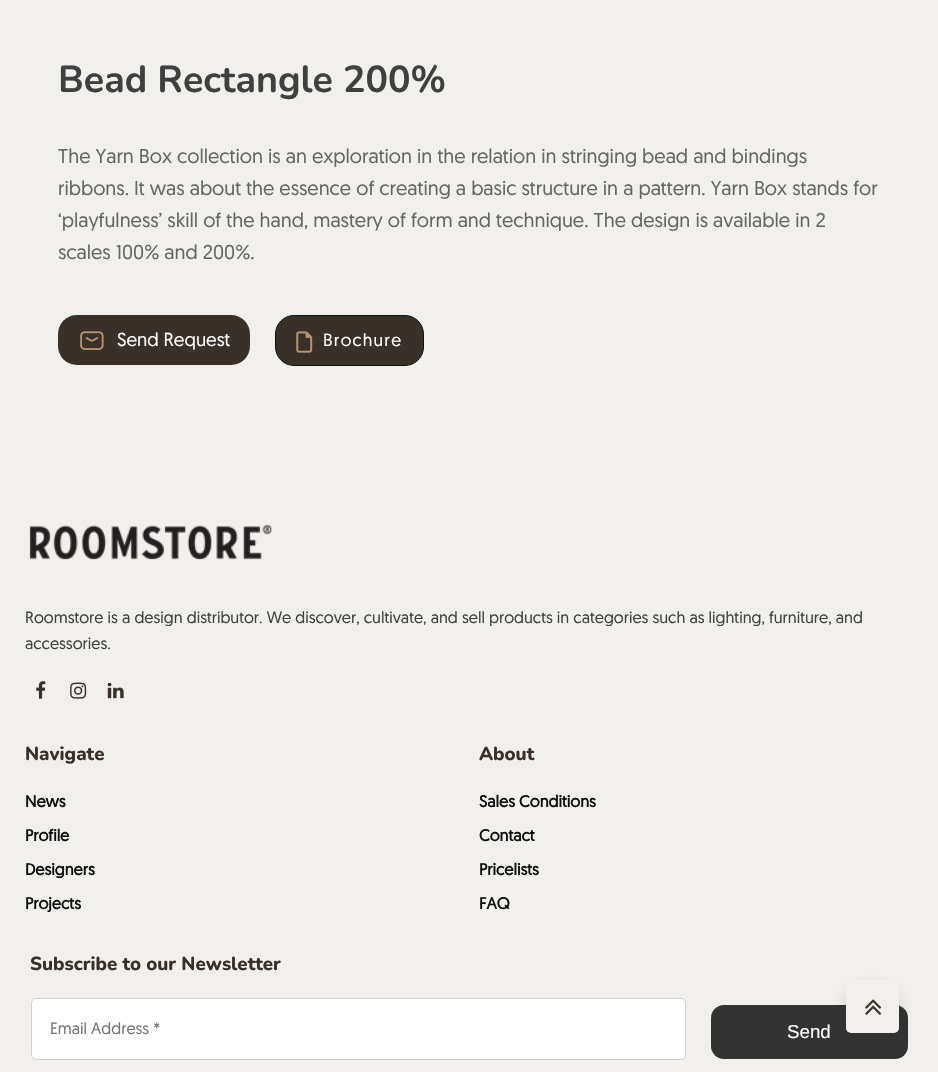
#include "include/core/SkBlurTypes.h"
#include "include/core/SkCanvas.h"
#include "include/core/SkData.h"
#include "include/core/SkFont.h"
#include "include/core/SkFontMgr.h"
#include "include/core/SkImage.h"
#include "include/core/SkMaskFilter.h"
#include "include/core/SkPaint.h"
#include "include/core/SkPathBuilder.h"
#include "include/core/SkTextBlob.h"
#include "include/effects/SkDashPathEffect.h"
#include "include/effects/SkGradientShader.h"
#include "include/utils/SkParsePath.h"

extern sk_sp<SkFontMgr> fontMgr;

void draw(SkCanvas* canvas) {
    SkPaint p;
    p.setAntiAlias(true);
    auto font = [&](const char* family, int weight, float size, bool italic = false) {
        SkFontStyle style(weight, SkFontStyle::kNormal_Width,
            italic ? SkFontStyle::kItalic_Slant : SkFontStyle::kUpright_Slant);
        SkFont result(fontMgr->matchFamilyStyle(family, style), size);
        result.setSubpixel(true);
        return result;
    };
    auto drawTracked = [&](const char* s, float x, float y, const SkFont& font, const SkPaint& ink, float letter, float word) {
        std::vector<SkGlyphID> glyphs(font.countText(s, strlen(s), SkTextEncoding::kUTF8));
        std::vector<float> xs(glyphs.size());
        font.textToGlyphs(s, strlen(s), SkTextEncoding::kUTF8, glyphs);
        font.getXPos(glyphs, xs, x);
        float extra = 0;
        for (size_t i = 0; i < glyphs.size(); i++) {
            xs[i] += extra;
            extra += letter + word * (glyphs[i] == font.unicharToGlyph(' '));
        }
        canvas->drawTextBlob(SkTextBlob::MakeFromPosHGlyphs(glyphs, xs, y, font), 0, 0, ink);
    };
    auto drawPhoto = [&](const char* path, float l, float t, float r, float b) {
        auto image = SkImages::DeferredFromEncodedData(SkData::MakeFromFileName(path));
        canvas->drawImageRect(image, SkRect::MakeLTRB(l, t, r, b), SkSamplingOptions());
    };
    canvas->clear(0xFFF2F0ED);
    auto font1 = font("Nunito", 700, 37.5f);
    p.setColor(0xFF404040);
    canvas->drawString("Bead Rectangle 200%", 58, 92, font1, p);
    auto font2 = font("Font", 400, 20);
    p.setColor(0xFF666666);
    {
        const struct { const char* s; float x, y; } items[] = {
            {"The Yarn Box collection is an exploration in the relation in stringing bead and bindings", 58, 163},
            {"ribbons. It was about the essence of creating a basic structure in a pattern. Yarn Box stands for", 58, 195},
            {"‘playfulness’ skill of the hand, mastery of form and technique. The design is available in 2", 58, 227},
            {"scales 100% and 200%.", 58, 259},
        };
        for (auto [s, x, y] : items) {
            canvas->drawString(s, x, y, font2, p);
        }
    }
    p.setColor(0xFF39302A);
    canvas->drawRoundRect(SkRect::MakeLTRB(58, 315, 250, 365), 19, 19, p);
    drawPhoto("media/1.png", 80, 331, 104, 350);
    auto font3 = font("Font", 400, 18.75f);
    p.setColor(0xFFFFFFFF);
    canvas->drawString("Send Request", 117, 346, font3, p);
    p.setColor(0xFF39302A);
    canvas->drawRoundRect(SkRect::MakeLTRB(275.5f, 315.5f, 423.5f, 365.5f), 18.5f, 18.5f, p);
    p.setStyle(SkPaint::kStroke_Style);
    p.setStrokeWidth(1);
    p.setColor(0xFF001B15);
    canvas->drawRoundRect(SkRect::MakeLTRB(275.5f, 315.5f, 423.5f, 365.5f), 18.5f, 18.5f, p);
    drawPhoto("media/2.png", 296, 331, 313, 353);
    auto font4 = font("Font", 400, 17.5f);
    p.setStyle(SkPaint::kFill_Style);
    p.setColor(0xFFFFFFFF);
    drawTracked("Brochure", 323, 346, font4, p, 1.25f, 0);
    drawPhoto("media/3.png", 29, 525, 272, 560);
    auto font5 = font("Font", 400, 16.25f);
    p.setColor(0xFF404040);
    canvas->drawString("Roomstore is a design distributor. We discover, cultivate, and sell products in categories such as lighting, furniture, and", 25, 623, font5, p);
    canvas->drawString("accessories.", 25, 649, font5, p);
    drawPhoto("media/4.png", 36, 681, 46, 699);
    drawPhoto("media/5.png", 70, 682, 87, 699);
    drawPhoto("media/6.png", 107, 682, 124, 699);
    auto font6 = font("Nunito", 800, 18.75f);
    p.setColor(0xFF39302A);
    canvas->drawString("Navigate", 25, 760, font6, p);
    auto font7 = font("Font", 700, 16.25f);
    p.setColor(0xFF0F0F0F);
    {
        const struct { const char* s; float x, y; } items[] = {
            {"News", 25, 807},
            {"Profile", 25, 841},
            {"Designers", 25, 875},
            {"Projects", 25, 909},
        };
        for (auto [s, x, y] : items) {
            canvas->drawString(s, x, y, font7, p);
        }
    }
    p.setColor(0xFF39302A);
    canvas->drawString("About", 479, 760, font6, p);
    p.setColor(0xFF0F0F0F);
    {
        const struct { const char* s; float x, y; } items[] = {
            {"Sales Conditions", 479, 807},
            {"Contact", 479, 841},
            {"Pricelists", 479, 875},
            {"FAQ", 479, 909},
        };
        for (auto [s, x, y] : items) {
            canvas->drawString(s, x, y, font7, p);
        }
    }
    p.setColor(0xFF39302A);
    canvas->drawString("Subscribe to our Newsletter", 30, 970, font6, p);
    p.setColor(0xFFFFFFFF);
    canvas->drawRoundRect(SkRect::MakeLTRB(31.5f, 998.5f, 685.5f, 1059.5f), 4.5f, 4.5f, p);
    p.setStyle(SkPaint::kStroke_Style);
    p.setColor(0xFFD3CED2);
    canvas->drawRoundRect(SkRect::MakeLTRB(31.5f, 998.5f, 685.5f, 1059.5f), 4.5f, 4.5f, p);
    p.setStyle(SkPaint::kFill_Style);
    p.setColor(0xFF757575);
    canvas->drawString("Email Address *", 50, 1034, font5, p);
    p.setColor(0xFF333333);
    canvas->drawRoundRect(SkRect::MakeLTRB(711, 1005, 908, 1059), 13, 13, p);
    auto font8 = font("Liberation Sans", 400, 18.75f);
    p.setColor(0xFFFFFFFF);
    canvas->drawString("Send", 787, 1038, font8, p);
    p.setColor(0xFF1E1E1E);
    p.setMaskFilter(SkMaskFilter::MakeBlur(kNormal_SkBlurStyle, 10.5f));
    canvas->drawRect(SkRect::MakeLTRB(859, 998, 886, 1025), p);
    p.setMaskFilter(nullptr);
    p.setColor(0xFFF2F0ED);
    canvas->drawRoundRect(SkRect::MakeLTRB(846, 980, 899, 1033), 5, 5, p);
    drawPhoto("media/7.png", 865, 999, 882, 1015);
}
